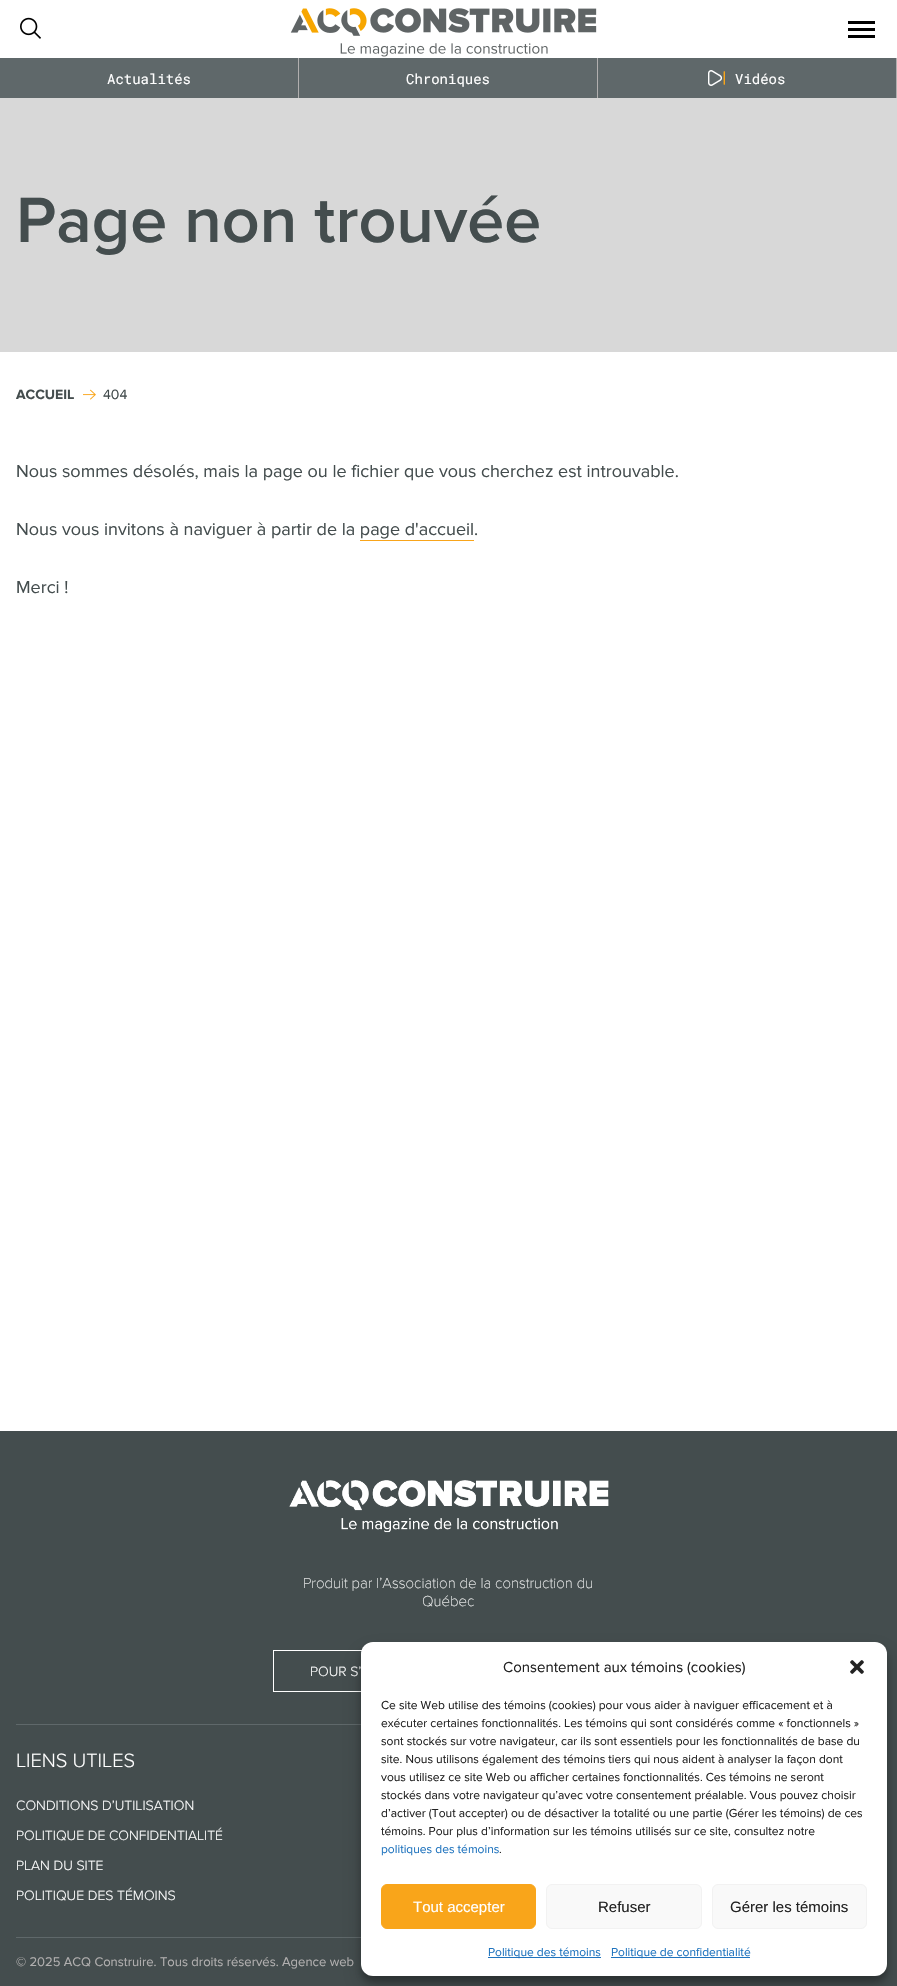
#include "include/core/SkBlurTypes.h"
#include "include/core/SkCanvas.h"
#include "include/core/SkData.h"
#include "include/core/SkFont.h"
#include "include/core/SkFontMgr.h"
#include "include/core/SkImage.h"
#include "include/core/SkMaskFilter.h"
#include "include/core/SkPaint.h"
#include "include/core/SkPathBuilder.h"
#include "include/core/SkTextBlob.h"
#include "include/effects/SkDashPathEffect.h"
#include "include/effects/SkGradientShader.h"
#include "include/utils/SkParsePath.h"

extern sk_sp<SkFontMgr> fontMgr;

void draw(SkCanvas* canvas) {
    SkPaint p;
    p.setAntiAlias(true);
    auto font = [&](const char* family, int weight, float size, bool italic = false) {
        SkFontStyle style(weight, SkFontStyle::kNormal_Width,
            italic ? SkFontStyle::kItalic_Slant : SkFontStyle::kUpright_Slant);
        SkFont result(fontMgr->matchFamilyStyle(family, style), size);
        result.setSubpixel(true);
        return result;
    };
    auto drawPhoto = [&](const char* path, float l, float t, float r, float b) {
        auto image = SkImages::DeferredFromEncodedData(SkData::MakeFromFileName(path));
        canvas->drawImageRect(image, SkRect::MakeLTRB(l, t, r, b), SkSamplingOptions());
    };
    canvas->clear(0xFFFFFFFF);
    drawPhoto("media/1.png", 20, 17, 41, 39);
    drawPhoto("media/2.png", 290, 8, 597, 57);
    {
        const struct { float l, t, r, b; SkColor color; } items[] = {
            {848, 28, 875, 31, 0xFF000000},
            {848, 21, 875, 24, 0xFF000000},
            {848, 35, 875, 38, 0xFF000000},
            {0, 58, 896, 98, 0xFF5F686A},
            {298, 58, 299, 98, 0xFFB1AFAF},
        };
        for (auto [l, t, r, b, color] : items) {
            p.setColor(color);
            canvas->drawRect(SkRect::MakeLTRB(l, t, r, b), p);
        }
    }
    auto font1 = font("Roboto Mono", 400, 14);
    p.setColor(0xFFFFFFFF);
    canvas->drawString("Actualités", 107, 84, font1, p);
    p.setColor(0xFFB1AFAF);
    canvas->drawRect(SkRect::MakeLTRB(597, 58, 598, 98), p);
    p.setColor(0xFFFFFFFF);
    canvas->drawString("Chroniques", 406, 84, font1, p);
    p.setColor(0xFFB1AFAF);
    canvas->drawRect(SkRect::MakeLTRB(896, 58, 897, 98), p);
    drawPhoto("media/3.png", 708, 70, 725, 86);
    p.setColor(0xFFFFFFFF);
    canvas->drawString("Vidéos", 735, 84, font1, p);
    p.setColor(0xFFD8D8D8);
    canvas->drawRect(SkRect::MakeLTRB(0, 98, 897, 352), p);
    auto font2 = font("Proxima Nova", 600, 66.25f);
    p.setColor(0xFF444D4E);
    canvas->drawString("Page non trouvée", 16, 242, font2, p);
    auto font3 = font("Proxima Nova", 700, 14);
    canvas->drawString("ACCUEIL", 16, 399, font3, p);
    drawPhoto("media/4.png", 83, 389, 96, 400);
    auto font4 = font("Proxima Nova", 400, 14);
    canvas->drawString("404", 103, 399, font4, p);
    auto font5 = font("Proxima Nova", 400, 18);
    {
        const struct { const char* s; float x, y; } items[] = {
            {"Nous sommes désolés, mais la page ou le fichier que vous cherchez est introuvable.", 16, 477},
            {"Nous vous invitons à naviguer à partir de la page d'accueil", 16, 535},
            {".", 474, 535},
        };
        for (auto [s, x, y] : items) {
            canvas->drawString(s, x, y, font5, p);
        }
    }
    p.setColor(0xFFF9A51A);
    canvas->drawRect(SkRect::MakeLTRB(360, 540, 474, 541), p);
    p.setColor(0xFF444D4E);
    canvas->drawString("Merci !", 16, 593, font5, p);
    canvas->drawRect(SkRect::MakeLTRB(0, 1431, 897, 1986), p);
    p.setColor(0xFF5F686A);
    canvas->drawRect(SkRect::MakeLTRB(16, 1724, 361, 1725), p);
    drawPhoto("media/5.png", 289, 1480, 609, 1533);
    auto font6 = font("Proxima Nova", 100, 15);
    p.setColor(0xFFFFFFFF);
    canvas->drawString("Produit par l’Association de la construction du", 303, 1588, font6, p);
    canvas->drawString("Québec", 422, 1606, font6, p);
    p.setStyle(SkPaint::kStroke_Style);
    p.setStrokeWidth(1);
    canvas->drawRect(SkRect::MakeLTRB(273.5f, 1650.5f, 623.5f, 1691.5f), p);
    auto font7 = font("Proxima Nova", 300, 14);
    p.setStyle(SkPaint::kFill_Style);
    canvas->drawString("POUR S’", 310, 1676, font7, p);
    auto font8 = font("Proxima Nova", 300, 20);
    canvas->drawString("LIENS UTILES", 16, 1767, font8, p);
    {
        const struct { const char* s; float x, y; } items[] = {
            {"CONDITIONS D’UTILISATION", 16, 1810},
            {"POLITIQUE DE CONFIDENTIALITÉ", 16, 1840},
            {"PLAN DU SITE", 16, 1870},
            {"POLITIQUE DES TÉMOINS", 16, 1900},
        };
        for (auto [s, x, y] : items) {
            canvas->drawString(s, x, y, font7, p);
        }
    }
    p.setColor(0xFF5F686A);
    canvas->drawRect(SkRect::MakeLTRB(16, 1937, 361, 1938), p);
    auto font9 = font("Proxima Nova", 400, 13);
    p.setColor(0xFFB1AFAF);
    canvas->drawString("© 2025 ACQ Construire. Tous droits réservés. Agence web", 16, 1966, font9, p);
    p.setColor(0x3B000000);
    p.setMaskFilter(SkMaskFilter::MakeBlur(kNormal_SkBlurStyle, 3));
    canvas->drawRoundRect(SkRect::MakeLTRB(361, 1648, 887, 1982), 12, 12, p);
    p.setMaskFilter(nullptr);
    p.setColor(0x30000000);
    p.setMaskFilter(SkMaskFilter::MakeBlur(kNormal_SkBlurStyle, 10));
    canvas->drawRoundRect(SkRect::MakeLTRB(361, 1652, 887, 1986), 12, 12, p);
    p.setMaskFilter(nullptr);
    p.setColor(0xFFFFFFFF);
    canvas->drawRoundRect(SkRect::MakeLTRB(361, 1642, 887, 1976), 12, 12, p);
    auto font10 = font("Proxima Nova", 400, 15);
    p.setColor(0xFF222222);
    canvas->drawString("Consentement aux témoins (cookies)", 503, 1672, font10, p);
    drawPhoto("media/6.png", 850, 1660, 864, 1674);
    auto font11 = font("Proxima Nova", 400, 12);
    {
        const struct { const char* s; float x, y; } items[] = {
            {"Ce site Web utilise des témoins (cookies) pour vous aider à naviguer efficacement et à", 381, 1709},
            {"exécuter certaines fonctionnalités. Les témoins qui sont considérés comme « fonctionnels »", 381, 1727},
            {"sont stockés sur votre navigateur, car ils sont essentiels pour les fonctionnalités de base du", 381, 1745},
            {"site. Nous utilisons également des témoins tiers qui nous aident à analyser la façon dont", 381, 1763},
            {"vous utilisez ce site Web ou afficher certaines fonctionnalités. Ces témoins ne seront", 381, 1781},
            {"stockés dans votre navigateur qu’avec votre consentement préalable. Vous pouvez choisir", 381, 1799},
            {"d’activer (Tout accepter) ou de désactiver la totalité ou une partie (Gérer les témoins) de ces", 381, 1817},
            {"témoins. Pour plus d’information sur les témoins utilisés sur ce site, consultez notre", 381, 1835},
        };
        for (auto [s, x, y] : items) {
            canvas->drawString(s, x, y, font11, p);
        }
    }
    p.setColor(0xFF1E73BE);
    canvas->drawString("politiques des témoins", 381, 1853, font11, p);
    p.setColor(0xFF222222);
    canvas->drawString(".", 499, 1853, font11, p);
    p.setColor(0xFFF9A51A);
    canvas->drawRoundRect(SkRect::MakeLTRB(381.5f, 1884.5f, 535.5f, 1928.5f), 5.5f, 5.5f, p);
    p.setStyle(SkPaint::kStroke_Style);
    canvas->drawRoundRect(SkRect::MakeLTRB(381.5f, 1884.5f, 535.5f, 1928.5f), 5.5f, 5.5f, p);
    auto font12 = font("Liberation Sans", 400, 15);
    p.setStyle(SkPaint::kFill_Style);
    p.setColor(0xFFFFFFFF);
    canvas->drawString("Tout accepter", 413, 1912, font12, p);
    p.setColor(0xFFF9F9F9);
    canvas->drawRoundRect(SkRect::MakeLTRB(546.5f, 1884.5f, 701.5f, 1928.5f), 5.5f, 5.5f, p);
    p.setStyle(SkPaint::kStroke_Style);
    p.setColor(0xFFF2F2F2);
    canvas->drawRoundRect(SkRect::MakeLTRB(546.5f, 1884.5f, 701.5f, 1928.5f), 5.5f, 5.5f, p);
    p.setStyle(SkPaint::kFill_Style);
    p.setColor(0xFF222222);
    canvas->drawString("Refuser", 598, 1912, font12, p);
    p.setColor(0xFFF9F9F9);
    canvas->drawRoundRect(SkRect::MakeLTRB(712.5f, 1884.5f, 866.5f, 1928.5f), 5.5f, 5.5f, p);
    p.setStyle(SkPaint::kStroke_Style);
    p.setColor(0xFFF2F2F2);
    canvas->drawRoundRect(SkRect::MakeLTRB(712.5f, 1884.5f, 866.5f, 1928.5f), 5.5f, 5.5f, p);
    p.setStyle(SkPaint::kFill_Style);
    p.setColor(0xFF222222);
    canvas->drawString("Gérer les témoins", 730, 1912, font12, p);
    p.setColor(0xFF1E73BE);
    canvas->drawRect(SkRect::MakeLTRB(488, 1957, 601, 1958), p);
    canvas->drawString("Politique des témoins", 488, 1956, font11, p);
    canvas->drawRect(SkRect::MakeLTRB(611, 1957, 750, 1958), p);
    canvas->drawString("Politique de confidentialité", 611, 1956, font11, p);
}
